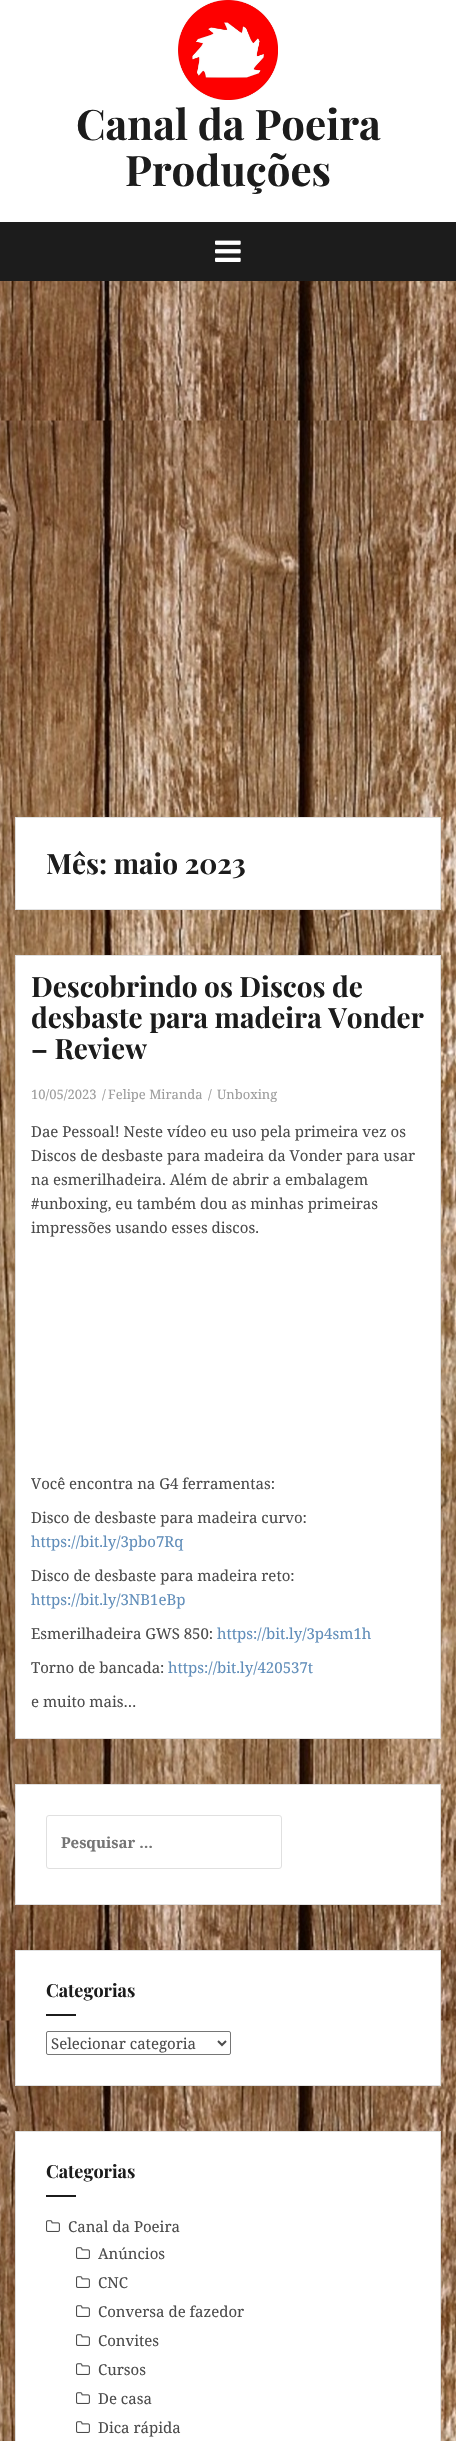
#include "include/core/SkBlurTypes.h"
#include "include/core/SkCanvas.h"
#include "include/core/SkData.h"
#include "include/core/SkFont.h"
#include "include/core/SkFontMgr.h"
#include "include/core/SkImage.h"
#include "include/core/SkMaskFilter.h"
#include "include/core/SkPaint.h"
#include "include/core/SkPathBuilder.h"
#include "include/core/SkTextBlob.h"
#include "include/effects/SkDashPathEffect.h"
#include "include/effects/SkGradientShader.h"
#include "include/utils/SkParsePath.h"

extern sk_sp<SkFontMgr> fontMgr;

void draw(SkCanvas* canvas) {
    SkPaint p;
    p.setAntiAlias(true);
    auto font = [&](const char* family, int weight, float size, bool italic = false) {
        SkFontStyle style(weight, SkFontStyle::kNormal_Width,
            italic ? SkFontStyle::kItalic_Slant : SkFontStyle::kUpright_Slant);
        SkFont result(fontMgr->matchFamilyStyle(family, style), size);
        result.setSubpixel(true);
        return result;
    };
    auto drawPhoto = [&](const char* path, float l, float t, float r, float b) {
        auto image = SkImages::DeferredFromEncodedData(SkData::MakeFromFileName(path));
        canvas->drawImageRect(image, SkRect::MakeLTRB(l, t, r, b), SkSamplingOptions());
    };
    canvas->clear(0xFFFFFFFF);
    drawPhoto("media/1.png", 0, 281, 456, 2441);
    drawPhoto("media/2.png", 178, 0, 278, 100);
    auto font1 = font("Playfair Display", 700, 42);
    p.setColor(0xFF1C1C1C);
    canvas->drawString("Canal da Poeira", 76, 140, font1, p);
    canvas->drawString("Produções", 125, 186, font1, p);
    canvas->drawRect(SkRect::MakeLTRB(0, 222, 456, 281), p);
    drawPhoto("media/3.png", 215, 240, 241, 262);
    p.setColor(0xFFFFFFFF);
    canvas->drawRect(SkRect::MakeLTRB(15.5f, 817.5f, 440.5f, 909.5f), p);
    p.setStyle(SkPaint::kStroke_Style);
    p.setStrokeWidth(1);
    p.setColor(0xFFE0E0E0);
    canvas->drawRect(SkRect::MakeLTRB(15.5f, 817.5f, 440.5f, 909.5f), p);
    auto font2 = font("Playfair Display", 700, 28);
    p.setStyle(SkPaint::kFill_Style);
    p.setColor(0xFF1C1C1C);
    canvas->drawString("Mês: maio 2023", 46, 874, font2, p);
    p.setColor(0xFFFFFFFF);
    canvas->drawRect(SkRect::MakeLTRB(15.5f, 955.5f, 440.5f, 1738.5f), p);
    p.setStyle(SkPaint::kStroke_Style);
    p.setColor(0xFFE0E0E0);
    canvas->drawRect(SkRect::MakeLTRB(15.5f, 955.5f, 440.5f, 1738.5f), p);
    p.setStyle(SkPaint::kFill_Style);
    p.setColor(0xFF1C1C1C);
    {
        const struct { const char* s; float x, y; } items[] = {
            {"Descobrindo os Discos de", 31, 997},
            {"desbaste para madeira Vonder", 31, 1028},
            {"– Review", 31, 1059},
        };
        for (auto [s, x, y] : items) {
            canvas->drawString(s, x, y, font2, p);
        }
    }
    auto font3 = font("Noto Serif", 400, 13);
    p.setColor(0xFF9D9D9D);
    {
        const struct { const char* s; float x, y; } items[] = {
            {"10/05/2023", 31, 1099},
            {"/", 102, 1099},
            {"Felipe Miranda", 108, 1099},
            {"/", 208, 1099},
            {"Unboxing", 217, 1099},
        };
        for (auto [s, x, y] : items) {
            canvas->drawString(s, x, y, font3, p);
        }
    }
    auto font4 = font("Noto Serif", 400, 15);
    p.setColor(0xFF4C4C4C);
    {
        const struct { const char* s; float x, y; } items[] = {
            {"Dae Pessoal! Neste vídeo eu uso pela primeira vez os", 31, 1137},
            {"Discos de desbaste para madeira da Vonder para usar", 31, 1161},
            {"na esmerilhadeira. Além de abrir a embalagem", 31, 1185},
            {"#unboxing, eu também dou as minhas primeiras", 31, 1209},
            {"impressões usando esses discos.", 31, 1233},
            {"Você encontra na G4 ferramentas:", 31, 1489},
            {"Disco de desbaste para madeira curvo:", 31, 1523},
        };
        for (auto [s, x, y] : items) {
            canvas->drawString(s, x, y, font4, p);
        }
    }
    p.setColor(0xFF618EBA);
    canvas->drawString("https://bit.ly/3pbo7Rq", 31, 1547, font4, p);
    p.setColor(0xFF4C4C4C);
    canvas->drawString("Disco de desbaste para madeira reto:", 31, 1581, font4, p);
    p.setColor(0xFF618EBA);
    canvas->drawString("https://bit.ly/3NB1eBp", 31, 1605, font4, p);
    p.setColor(0xFF4C4C4C);
    canvas->drawString("Esmerilhadeira GWS 850:", 31, 1639, font4, p);
    p.setColor(0xFF618EBA);
    canvas->drawString("https://bit.ly/3p4sm1h", 217, 1639, font4, p);
    p.setColor(0xFF4C4C4C);
    canvas->drawString("Torno de bancada:", 31, 1673, font4, p);
    p.setColor(0xFF618EBA);
    canvas->drawString("https://bit.ly/420537t", 168, 1673, font4, p);
    p.setColor(0xFF4C4C4C);
    canvas->drawString("e muito mais…", 31, 1707, font4, p);
    p.setColor(0xFFFFFFFF);
    canvas->drawRect(SkRect::MakeLTRB(15.5f, 1784.5f, 440.5f, 1904.5f), p);
    p.setStyle(SkPaint::kStroke_Style);
    p.setColor(0xFFE0E0E0);
    canvas->drawRect(SkRect::MakeLTRB(15.5f, 1784.5f, 440.5f, 1904.5f), p);
    canvas->drawRoundRect(SkRect::MakeLTRB(46.5f, 1815.5f, 281.5f, 1868.5f), 2.5f, 2.5f, p);
    auto font5 = font("Noto Serif", 700, 15);
    p.setStyle(SkPaint::kFill_Style);
    p.setColor(0xFF757575);
    canvas->drawString("Pesquisar …", 61, 1848, font5, p);
    p.setColor(0xFFFFFFFF);
    canvas->drawRect(SkRect::MakeLTRB(15.5f, 1950.5f, 440.5f, 2085.5f), p);
    p.setStyle(SkPaint::kStroke_Style);
    p.setColor(0xFFE0E0E0);
    canvas->drawRect(SkRect::MakeLTRB(15.5f, 1950.5f, 440.5f, 2085.5f), p);
    auto font6 = font("Playfair Display", 700, 18);
    p.setStyle(SkPaint::kFill_Style);
    p.setColor(0xFF1C1C1C);
    canvas->drawString("Categorias", 46, 1997, font6, p);
    canvas->drawRect(SkRect::MakeLTRB(46, 2014, 76, 2016), p);
    p.setStyle(SkPaint::kStroke_Style);
    p.setColor(0xFF767676);
    canvas->drawRoundRect(SkRect::MakeLTRB(46.5f, 2031.5f, 230.5f, 2054.5f), 1.5f, 1.5f, p);
    p.setStrokeWidth(2);
    p.setColor(0xFF4C4C4C);
    canvas->drawPath(SkPathBuilder().moveTo(218, 2041).lineTo(222, 2045).lineTo(226, 2041).detach(), p);
    p.setStyle(SkPaint::kFill_Style);
    canvas->drawString("Selecionar categoria", 51, 2049, font4, p);
    p.setColor(0xFFFFFFFF);
    canvas->drawRect(SkRect::MakeLTRB(15.5f, 2131.5f, 440.5f, 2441.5f), p);
    p.setStyle(SkPaint::kStroke_Style);
    p.setStrokeWidth(1);
    p.setColor(0xFFE0E0E0);
    canvas->drawRect(SkRect::MakeLTRB(15.5f, 2131.5f, 440.5f, 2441.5f), p);
    p.setStyle(SkPaint::kFill_Style);
    p.setColor(0xFF1C1C1C);
    canvas->drawString("Categorias", 46, 2178, font6, p);
    canvas->drawRect(SkRect::MakeLTRB(46, 2195, 76, 2197), p);
    drawPhoto("media/4.png", 46, 2220, 60, 2232);
    p.setColor(0xFF4C4C4C);
    canvas->drawString("Canal da Poeira", 68, 2232, font4, p);
    drawPhoto("media/4.png", 76, 2247, 90, 2259);
    canvas->drawString("Anúncios", 98, 2259, font4, p);
    drawPhoto("media/4.png", 76, 2276, 90, 2288);
    canvas->drawString("CNC", 98, 2288, font4, p);
    drawPhoto("media/4.png", 76, 2305, 90, 2317);
    canvas->drawString("Conversa de fazedor", 98, 2317, font4, p);
    drawPhoto("media/4.png", 76, 2334, 90, 2346);
    canvas->drawString("Convites", 98, 2346, font4, p);
    drawPhoto("media/4.png", 76, 2363, 90, 2375);
    canvas->drawString("Cursos", 98, 2375, font4, p);
    drawPhoto("media/4.png", 76, 2392, 90, 2404);
    canvas->drawString("De casa", 98, 2404, font4, p);
    drawPhoto("media/4.png", 76, 2421, 90, 2433);
    canvas->drawString("Dica rápida", 98, 2433, font4, p);
}
